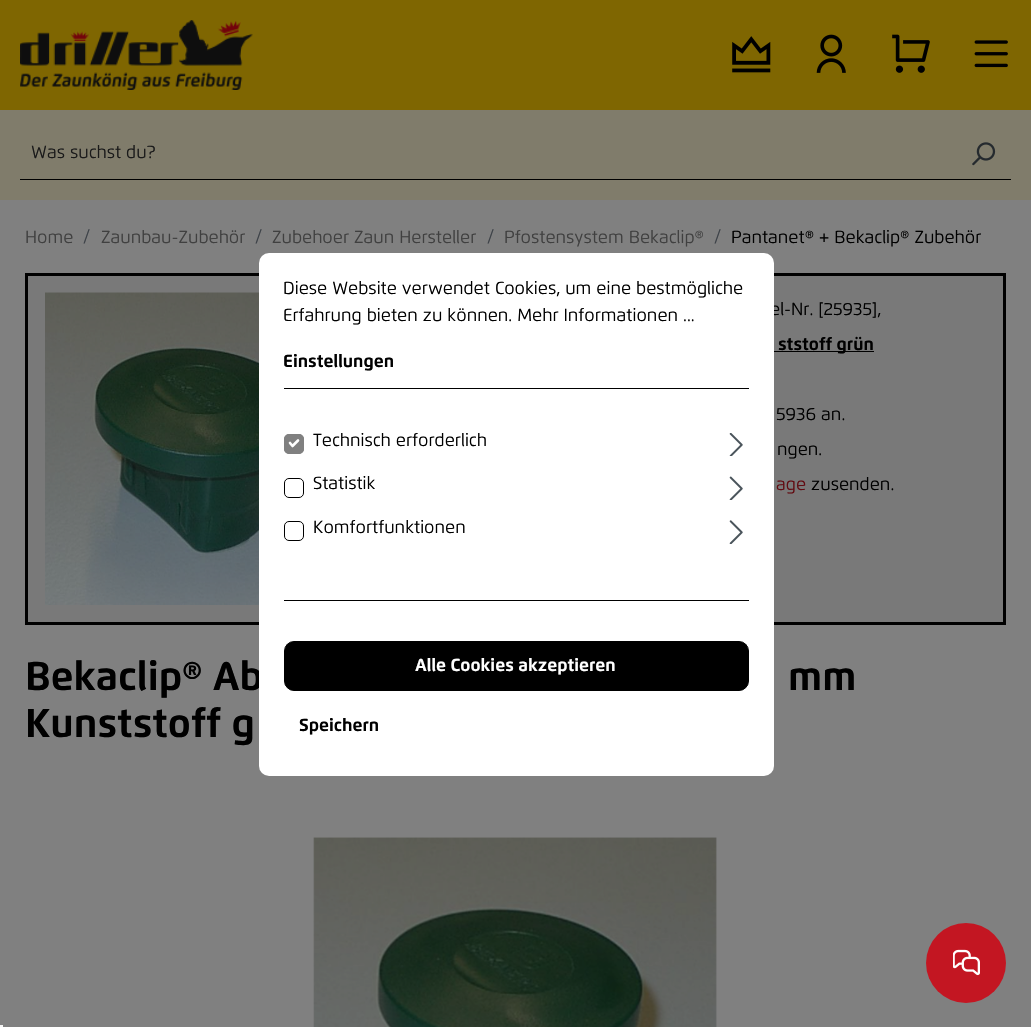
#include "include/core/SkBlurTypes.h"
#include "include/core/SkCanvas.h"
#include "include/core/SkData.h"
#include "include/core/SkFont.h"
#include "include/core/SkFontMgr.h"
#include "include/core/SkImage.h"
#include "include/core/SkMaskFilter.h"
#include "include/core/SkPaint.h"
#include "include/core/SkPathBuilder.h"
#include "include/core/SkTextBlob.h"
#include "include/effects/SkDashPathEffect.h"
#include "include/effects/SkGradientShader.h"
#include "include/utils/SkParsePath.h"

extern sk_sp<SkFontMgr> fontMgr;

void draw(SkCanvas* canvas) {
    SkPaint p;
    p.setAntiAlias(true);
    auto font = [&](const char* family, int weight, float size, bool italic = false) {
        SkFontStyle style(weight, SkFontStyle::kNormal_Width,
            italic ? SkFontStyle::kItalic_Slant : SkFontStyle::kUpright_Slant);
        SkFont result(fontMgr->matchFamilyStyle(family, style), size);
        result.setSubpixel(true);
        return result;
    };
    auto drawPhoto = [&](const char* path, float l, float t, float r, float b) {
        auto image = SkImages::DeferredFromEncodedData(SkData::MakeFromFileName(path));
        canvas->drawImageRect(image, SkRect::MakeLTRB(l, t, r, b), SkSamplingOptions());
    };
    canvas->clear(0xFF808080);
    p.setColor(0xFF7F6601);
    canvas->drawRect(SkRect::MakeLTRB(0, 0, 1031, 110), p);
    drawPhoto("media/1.png", 20, 20, 253, 90);
    drawPhoto("media/2.png", 732, 36, 771, 73);
    drawPhoto("media/3.png", 816, 34, 846, 73);
    drawPhoto("media/4.png", 892, 34, 930, 73);
    drawPhoto("media/5.png", 974, 40, 1008, 68);
    p.setColor(0xFF807C6B);
    canvas->drawRect(SkRect::MakeLTRB(0, 110, 1031, 200), p);
    p.setColor(0xFF000000);
    canvas->drawRect(SkRect::MakeLTRB(20, 179, 1011, 180), p);
    auto font1 = font("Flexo", 400, 17.5f);
    p.setColor(0xFF1A1A1A);
    canvas->drawString("Was suchst du?", 31, 158, font1, p);
    drawPhoto("media/6.png", 972, 142, 996, 166);
    p.setColor(0xFF404040);
    canvas->drawString("Home", 25, 243, font1, p);
    p.setColor(0xFF3D4248);
    canvas->drawString("/", 83, 242, font1, p);
    p.setColor(0xFF404040);
    canvas->drawString("Zaunbau-Zubehör", 101, 243, font1, p);
    p.setColor(0xFF3D4248);
    canvas->drawString("/", 255, 242, font1, p);
    p.setColor(0xFF404040);
    canvas->drawString("Zubehoer Zaun Hersteller", 272, 243, font1, p);
    p.setColor(0xFF3D4248);
    canvas->drawString("/", 487, 242, font1, p);
    p.setColor(0xFF404040);
    canvas->drawString("Pfostensystem Bekaclip®", 504, 243, font1, p);
    p.setColor(0xFF3D4248);
    canvas->drawString("/", 714, 242, font1, p);
    p.setColor(0xFF000000);
    canvas->drawString("Pantanet® + Bekaclip® Zubehör", 731, 243, font1, p);
    p.setColor(0xFF797979);
    canvas->drawRect(SkRect::MakeLTRB(26.5f, 274.5f, 1004.5f, 623.5f), p);
    p.setStyle(SkPaint::kStroke_Style);
    p.setStrokeWidth(3);
    p.setColor(0xFF000000);
    canvas->drawRect(SkRect::MakeLTRB(26.5f, 274.5f, 1004.5f, 623.5f), p);
    drawPhoto("media/7.png", 45, 292, 259, 605);
    p.setStyle(SkPaint::kFill_Style);
    canvas->drawString("el-Nr. [25935],", 770, 315, font1, p);
    canvas->drawRect(SkRect::MakeLTRB(774, 351, 874, 352), p);
    auto font2 = font("Flexo", 700, 17.5f);
    canvas->drawString("ststoff grün", 778, 350, font2, p);
    canvas->drawString("5936 an.", 776, 420, font1, p);
    canvas->drawString("ngen.", 777, 455, font1, p);
    p.setColor(0xFF620B11);
    canvas->drawString("age", 776, 490, font1, p);
    p.setColor(0xFF000000);
    canvas->drawString("zusenden.", 811, 490, font1, p);
    auto font3 = font("Flexo", 700, 40);
    {
        const struct { const char* s; float x, y; } items[] = {
            {"Bekaclip® Ab", 25, 690},
            {"mm", 788, 690},
            {"Kunststoff g", 25, 737},
        };
        for (auto [s, x, y] : items) {
            canvas->drawString(s, x, y, font3, p);
        }
    }
    drawPhoto("media/8.png", 313, 837, 717, 1027);
    p.setColor(0xFFFFFFFF);
    canvas->drawRoundRect(SkRect::MakeLTRB(259, 253, 774, 776), 10, 10, p);
    p.setColor(0xFF000000);
    canvas->drawRect(SkRect::MakeLTRB(284, 388, 749, 389), p);
    canvas->drawString("Diese Website verwendet Cookies, um eine bestmögliche", 283, 294, font1, p);
    canvas->drawString("Erfahrung bieten zu können. Mehr Informationen ...", 283, 321, font1, p);
    canvas->drawString("Einstellungen", 283, 367, font2, p);
    canvas->drawRect(SkRect::MakeLTRB(284, 600, 749, 601), p);
    p.setColor(0xFF808080);
    canvas->drawRoundRect(SkRect::MakeLTRB(284, 434, 304, 454), 5, 5, p);
    p.setStyle(SkPaint::kStroke_Style);
    p.setStrokeWidth(2.6f);
    p.setStrokeCap(SkPaint::kRound_Cap);
    p.setStrokeJoin(SkPaint::kRound_Join);
    p.setColor(0xFFFFFFFF);
    canvas->drawPath(SkPathBuilder().moveTo(290, 443).lineTo(292.5f, 446).lineTo(298, 440.5f).detach(), p);
    p.setStrokeWidth(1);
    p.setStrokeCap(SkPaint::kButt_Cap);
    p.setStrokeJoin(SkPaint::kMiter_Join);
    p.setColor(0xFF808080);
    canvas->drawRoundRect(SkRect::MakeLTRB(284.5f, 434.5f, 303.5f, 453.5f), 4.5f, 4.5f, p);
    p.setStyle(SkPaint::kFill_Style);
    p.setColor(0xFF000000);
    canvas->drawString("Technisch erforderlich", 313, 446, font1, p);
    drawPhoto("media/9.png", 729, 433, 743, 456);
    p.setStyle(SkPaint::kStroke_Style);
    canvas->drawRoundRect(SkRect::MakeLTRB(284.5f, 478.5f, 303.5f, 497.5f), 4.5f, 4.5f, p);
    p.setStyle(SkPaint::kFill_Style);
    canvas->drawString("Statistik", 313, 489, font1, p);
    drawPhoto("media/10.png", 729, 476, 743, 500);
    p.setStyle(SkPaint::kStroke_Style);
    canvas->drawRoundRect(SkRect::MakeLTRB(284.5f, 521.5f, 303.5f, 540.5f), 4.5f, 4.5f, p);
    p.setStyle(SkPaint::kFill_Style);
    canvas->drawString("Komfortfunktionen", 313, 533, font1, p);
    drawPhoto("media/11.png", 729, 520, 743, 544);
    canvas->drawRoundRect(SkRect::MakeLTRB(284.5f, 641.5f, 748.5f, 690.5f), 9.5f, 9.5f, p);
    p.setStyle(SkPaint::kStroke_Style);
    canvas->drawRoundRect(SkRect::MakeLTRB(284.5f, 641.5f, 748.5f, 690.5f), 9.5f, 9.5f, p);
    p.setStyle(SkPaint::kFill_Style);
    p.setColor(0xFFFFFFFF);
    canvas->drawString("Alle Cookies akzeptieren", 415, 671, font2, p);
    p.setColor(0xFF000000);
    canvas->drawString("Speichern", 299, 731, font2, p);
    p.setColor(0xFFC31622);
    canvas->drawCircle(966, 963, 40, p);
    drawPhoto("media/12.png", 953, 949, 980, 976);
    p.setColor(0xFFF5F5F5);
    canvas->drawRect(SkRect::MakeLTRB(0, 1025, 3, 1027), p);
}
